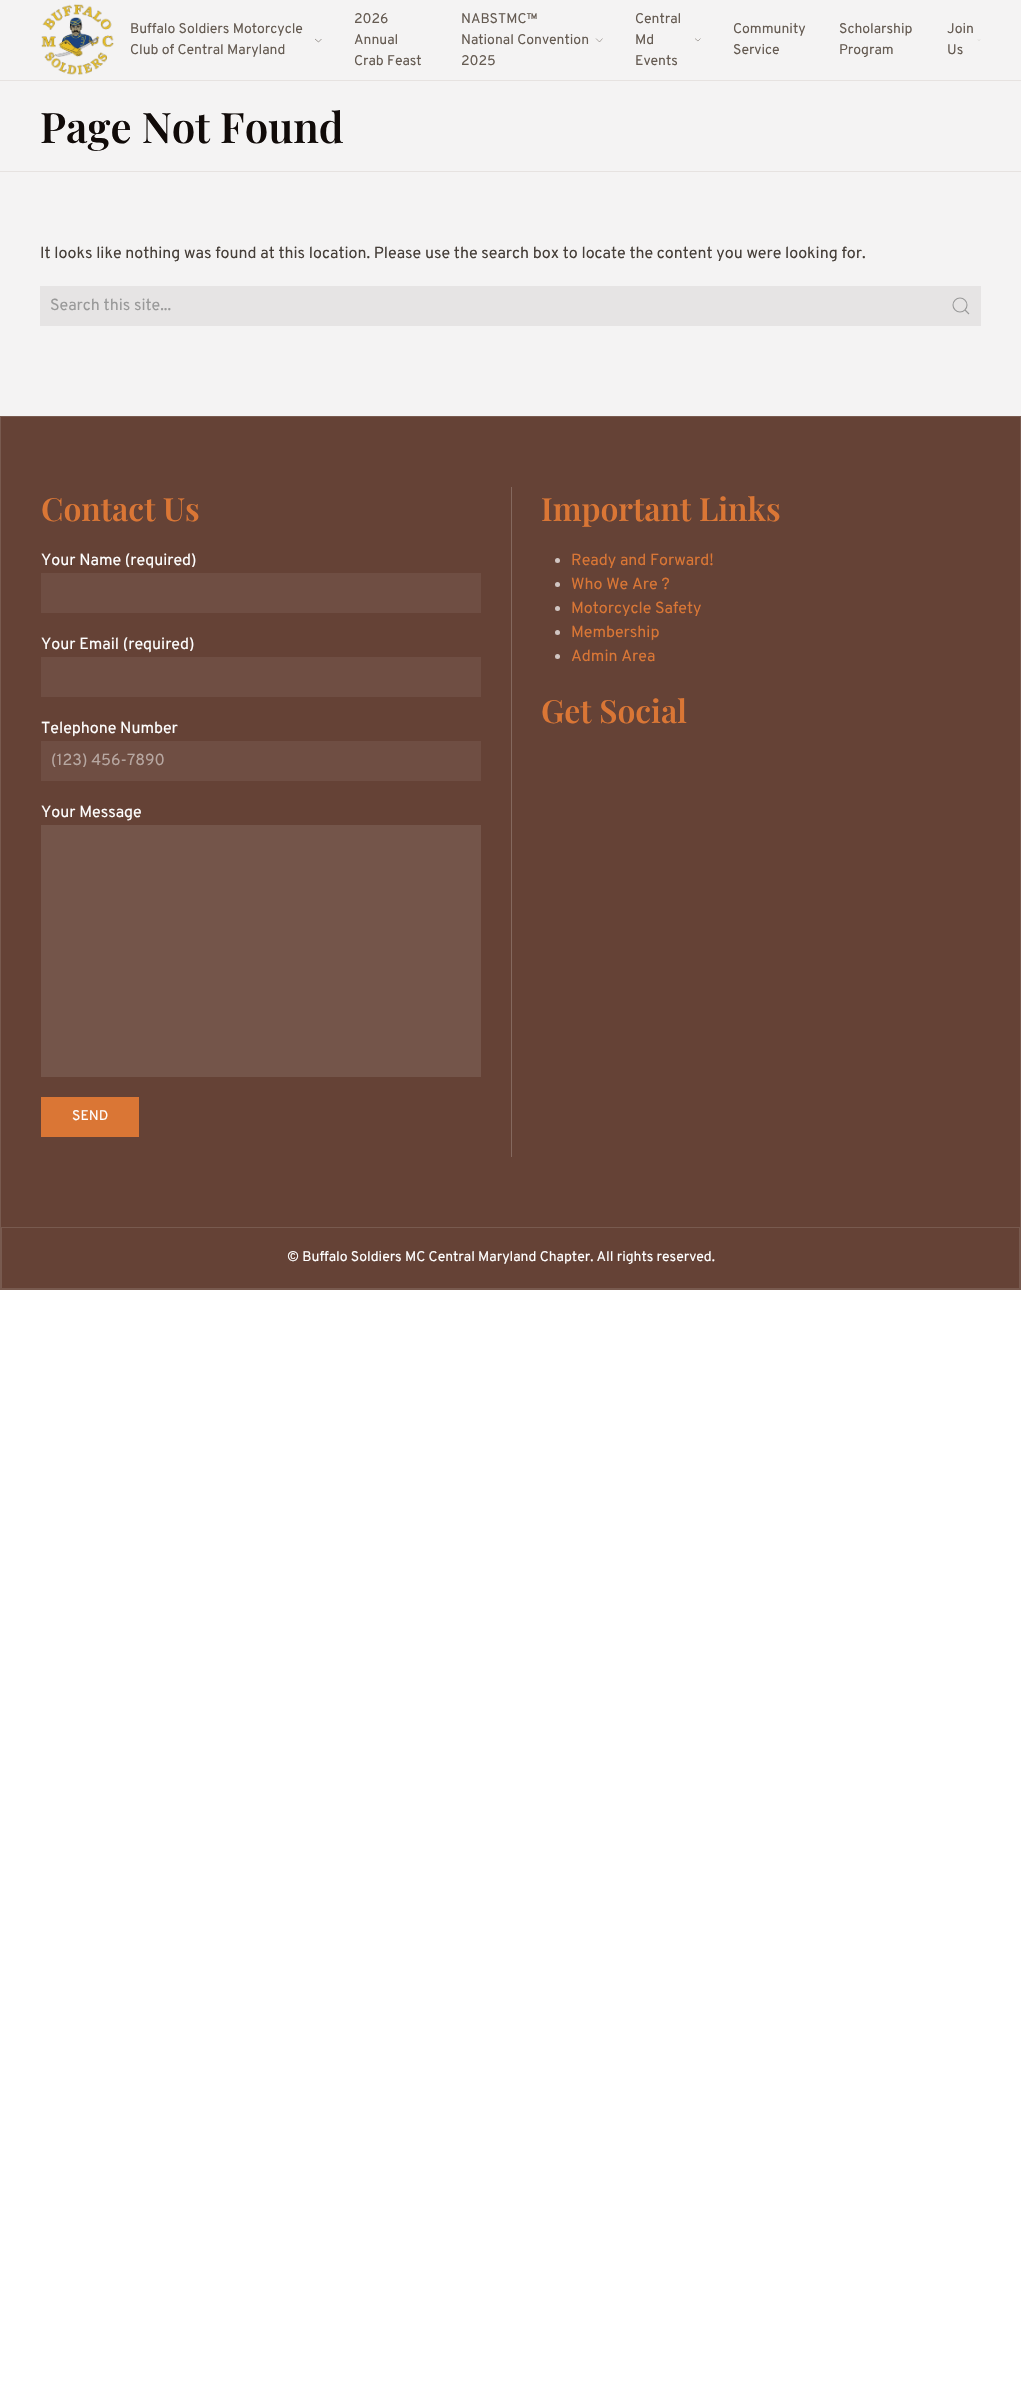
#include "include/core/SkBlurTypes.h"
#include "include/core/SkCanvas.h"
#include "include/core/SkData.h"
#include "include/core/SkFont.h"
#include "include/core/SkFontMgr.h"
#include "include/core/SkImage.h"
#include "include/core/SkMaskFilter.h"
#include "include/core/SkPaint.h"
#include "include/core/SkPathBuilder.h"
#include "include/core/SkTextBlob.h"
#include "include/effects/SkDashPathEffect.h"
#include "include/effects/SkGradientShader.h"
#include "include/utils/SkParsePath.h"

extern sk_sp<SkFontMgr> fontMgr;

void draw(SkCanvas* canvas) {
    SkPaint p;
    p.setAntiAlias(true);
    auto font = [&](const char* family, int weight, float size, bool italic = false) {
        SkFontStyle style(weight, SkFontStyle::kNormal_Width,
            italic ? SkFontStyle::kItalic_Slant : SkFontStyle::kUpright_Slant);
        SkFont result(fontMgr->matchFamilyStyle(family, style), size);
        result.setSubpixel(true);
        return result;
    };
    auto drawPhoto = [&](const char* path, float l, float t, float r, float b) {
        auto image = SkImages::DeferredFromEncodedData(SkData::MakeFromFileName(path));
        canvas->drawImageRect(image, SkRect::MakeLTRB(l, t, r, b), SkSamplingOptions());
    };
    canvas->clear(0xFFFFFFFF);
    p.setColor(0xFFF4F3F3);
    canvas->drawRect(SkRect::MakeLTRB(0, 0, 1021, 416), p);
    p.setColor(0xFFE6E2E0);
    canvas->drawRect(SkRect::MakeLTRB(0, 80, 1021, 81), p);
    drawPhoto("media/1.png", 41, 4, 114, 75);
    auto font1 = font("Overpass", 400, 14);
    p.setColor(0xFF655B52);
    canvas->drawString("Buffalo Soldiers Motorcycle", 130, 33, font1, p);
    p.setStyle(SkPaint::kStroke_Style);
    p.setStrokeWidth(0.6f);
    canvas->drawPath(SkPathBuilder().moveTo(321.5f, 39).lineTo(318.5f, 42).lineTo(315, 39).detach(), p);
    p.setStyle(SkPaint::kFill_Style);
    {
        const struct { const char* s; float x, y; } items[] = {
            {"Club of Central Maryland", 130, 54},
            {"2026", 354, 23},
            {"Annual", 354, 44},
            {"Crab Feast", 354, 65},
            {"NABSTMC™", 461, 23},
            {"National Convention", 461, 44},
        };
        for (auto [s, x, y] : items) {
            canvas->drawString(s, x, y, font1, p);
        }
    }
    p.setStyle(SkPaint::kStroke_Style);
    p.setStrokeWidth(0.5f);
    canvas->drawPath(SkPathBuilder().moveTo(602.5f, 38.5f).lineTo(599.5f, 42).lineTo(596, 38.5f).detach(), p);
    p.setStyle(SkPaint::kFill_Style);
    {
        const struct { const char* s; float x, y; } items[] = {
            {"2025", 461, 65},
            {"Central", 635, 23},
            {"Md", 635, 44},
        };
        for (auto [s, x, y] : items) {
            canvas->drawString(s, x, y, font1, p);
        }
    }
    p.setStyle(SkPaint::kStroke_Style);
    canvas->drawPath(SkPathBuilder().moveTo(700.5f, 38.5f).lineTo(698, 41).lineTo(695, 38.5f).detach(), p);
    p.setStyle(SkPaint::kFill_Style);
    {
        const struct { const char* s; float x, y; } items[] = {
            {"Events", 635, 65},
            {"Community", 733, 33},
            {"Service", 733, 54},
            {"Scholarship", 839, 33},
            {"Program", 839, 54},
            {"Join", 947, 33},
        };
        for (auto [s, x, y] : items) {
            canvas->drawString(s, x, y, font1, p);
        }
    }
    p.setStyle(SkPaint::kStroke_Style);
    p.setStrokeWidth(0.2f);
    canvas->drawPath(SkPathBuilder().moveTo(980, 39.5f).lineTo(979, 40.5f).lineTo(978, 39.5f).detach(), p);
    p.setStyle(SkPaint::kFill_Style);
    canvas->drawString("Us", 947, 54, font1, p);
    p.setColor(0xFFE6E2E0);
    canvas->drawRect(SkRect::MakeLTRB(0, 171, 1021, 172), p);
    auto font2 = font("Playfair Display", 600, 42);
    p.setColor(0xFF110B09);
    canvas->drawString("Page Not Found", 40, 143, font2, p);
    auto font3 = font("Overpass", 400, 16);
    p.setColor(0xFF463F39);
    canvas->drawString("It looks like nothing was found at this location. Please use the search box to locate the content you were looking for.", 40, 258, font3, p);
    p.setColor(0xFFE6E4E4);
    canvas->drawRect(SkRect::MakeLTRB(40, 286, 981, 326), p);
    p.setColor(0xFF999999);
    canvas->drawString("Search this site...", 50, 310, font3, p);
    p.setStyle(SkPaint::kStroke_Style);
    p.setStrokeWidth(1.1f);
    canvas->drawCircle(960, 305, 7, p);
    canvas->drawPath(SkPathBuilder().moveTo(965, 310).lineTo(969, 314).close().detach(), p);
    p.setStyle(SkPaint::kFill_Style);
    p.setColor(0xFF654236);
    canvas->drawRect(SkRect::MakeLTRB(1, 417, 1020, 1288), p);
    p.setStyle(SkPaint::kStroke_Style);
    p.setStrokeWidth(1);
    p.setColor(0xFF785A4F);
    canvas->drawRect(SkRect::MakeLTRB(0.5f, 416.5f, 1020.5f, 1289.5f), p);
    auto font4 = font("Playfair Display", 600, 32);
    p.setStyle(SkPaint::kFill_Style);
    p.setColor(0xFFDA7635);
    canvas->drawString("Contact Us", 41, 521, font4, p);
    p.setColor(0xFFFFFFFF);
    canvas->drawString("Your Name (required)", 41, 565, font3, p);
    p.setColor(0xFF6F4E43);
    canvas->drawRect(SkRect::MakeLTRB(41, 573, 481, 613), p);
    p.setColor(0xFFFFFFFF);
    canvas->drawString("Your Email (required)", 41, 649, font3, p);
    p.setColor(0xFF6F4E43);
    canvas->drawRect(SkRect::MakeLTRB(41, 657, 481, 697), p);
    p.setColor(0xFFFFFFFF);
    canvas->drawString("Telephone Number", 41, 733, font3, p);
    p.setColor(0xFF6F4E43);
    canvas->drawRect(SkRect::MakeLTRB(41, 741, 481, 781), p);
    p.setColor(0xFFB7A7A1);
    canvas->drawString("(123) 456-7890", 51, 765, font3, p);
    p.setColor(0xFFFFFFFF);
    canvas->drawString("Your Message", 41, 817, font3, p);
    p.setColor(0xFF74554A);
    canvas->drawRect(SkRect::MakeLTRB(41, 825, 481, 1077), p);
    p.setColor(0xFFDA7635);
    canvas->drawRect(SkRect::MakeLTRB(41, 1097, 139, 1137), p);
    p.setColor(0xFFFFFFFF);
    canvas->drawString("SEND", 72, 1120, font1, p);
    p.setColor(0xFF84685E);
    canvas->drawRect(SkRect::MakeLTRB(511, 487, 512, 1157), p);
    p.setColor(0xFFDA7635);
    canvas->drawString("Important Links", 541, 521, font4, p);
    p.setColor(0xFFD1C6C3);
    canvas->drawCircle(557.5f, 560.5f, 2.5f, p);
    p.setColor(0xFFDA7635);
    canvas->drawString("Ready and Forward!", 571, 565, font3, p);
    p.setColor(0xFFD1C6C3);
    canvas->drawCircle(557.5f, 584.5f, 2.5f, p);
    p.setColor(0xFFDA7635);
    canvas->drawString("Who We Are ?", 571, 589, font3, p);
    p.setColor(0xFFD1C6C3);
    canvas->drawCircle(557.5f, 608.5f, 2.5f, p);
    p.setColor(0xFFDA7635);
    canvas->drawString("Motorcycle Safety", 571, 613, font3, p);
    p.setColor(0xFFD1C6C3);
    canvas->drawCircle(557.5f, 632.5f, 2.5f, p);
    p.setColor(0xFFDA7635);
    canvas->drawString("Membership", 571, 637, font3, p);
    p.setColor(0xFFD1C6C3);
    canvas->drawCircle(557.5f, 656.5f, 2.5f, p);
    p.setColor(0xFFDA7635);
    canvas->drawString("Admin Area", 571, 661, font3, p);
    canvas->drawString("Get Social", 541, 723, font4, p);
    p.setStyle(SkPaint::kStroke_Style);
    p.setColor(0xFF785A4F);
    canvas->drawRect(SkRect::MakeLTRB(1.5f, 1227.5f, 1019.5f, 1288.5f), p);
    p.setStyle(SkPaint::kFill_Style);
    p.setColor(0xFFFFFFFF);
    canvas->drawString("© Buffalo Soldiers MC Central Maryland Chapter. All rights reserved.", 287, 1261, font1, p);
}
